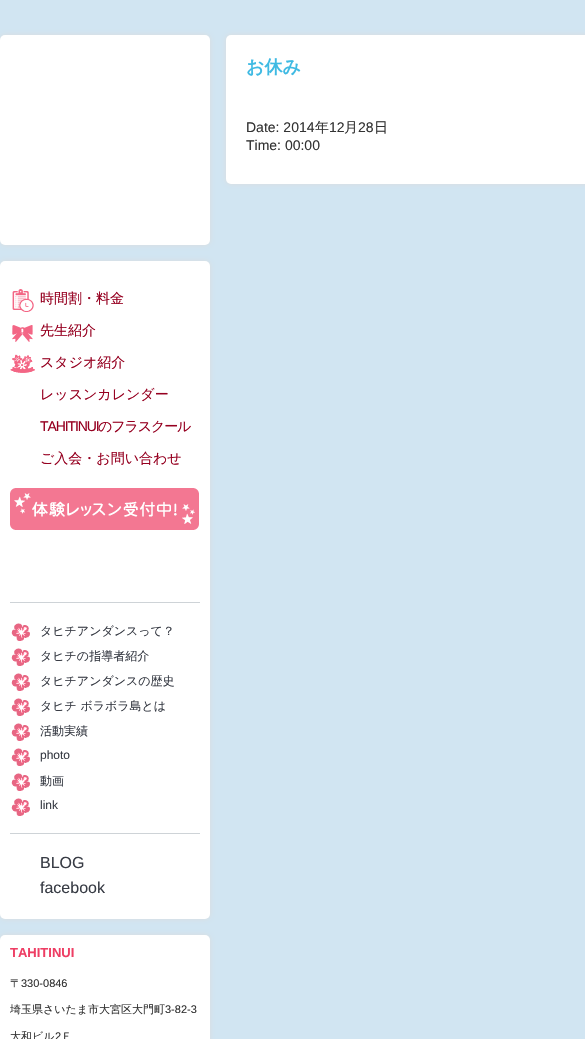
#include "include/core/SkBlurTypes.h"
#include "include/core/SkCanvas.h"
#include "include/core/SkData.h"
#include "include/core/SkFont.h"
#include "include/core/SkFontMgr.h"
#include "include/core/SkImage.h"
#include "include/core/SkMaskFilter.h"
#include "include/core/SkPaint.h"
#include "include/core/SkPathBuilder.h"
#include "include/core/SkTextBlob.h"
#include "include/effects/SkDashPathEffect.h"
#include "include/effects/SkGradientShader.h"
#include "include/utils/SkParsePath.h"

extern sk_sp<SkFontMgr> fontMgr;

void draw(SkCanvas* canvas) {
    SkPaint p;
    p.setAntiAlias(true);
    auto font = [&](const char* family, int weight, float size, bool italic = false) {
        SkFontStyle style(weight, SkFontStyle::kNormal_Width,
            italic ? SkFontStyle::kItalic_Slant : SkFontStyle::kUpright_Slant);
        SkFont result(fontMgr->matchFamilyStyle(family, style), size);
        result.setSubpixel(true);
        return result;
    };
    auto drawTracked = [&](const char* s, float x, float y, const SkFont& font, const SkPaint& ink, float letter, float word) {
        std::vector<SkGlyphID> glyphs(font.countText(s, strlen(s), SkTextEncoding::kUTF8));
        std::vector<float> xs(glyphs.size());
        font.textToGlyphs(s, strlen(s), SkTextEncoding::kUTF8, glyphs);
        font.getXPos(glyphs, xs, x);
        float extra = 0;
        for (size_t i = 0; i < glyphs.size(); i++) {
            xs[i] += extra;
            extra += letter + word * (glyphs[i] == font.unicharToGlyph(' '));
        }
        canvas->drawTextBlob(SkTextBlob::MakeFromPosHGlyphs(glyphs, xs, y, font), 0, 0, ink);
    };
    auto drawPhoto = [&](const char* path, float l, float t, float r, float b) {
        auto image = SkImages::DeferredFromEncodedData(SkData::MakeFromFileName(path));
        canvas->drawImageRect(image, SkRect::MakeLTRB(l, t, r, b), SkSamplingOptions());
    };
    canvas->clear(0xFFD1E5F2);
    p.setColor(0xFFDDDDDD);
    p.setMaskFilter(SkMaskFilter::MakeBlur(kNormal_SkBlurStyle, 2.5f));
    canvas->drawRoundRect(SkRect::MakeLTRB(226, 35, 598, 184), 5, 5, p);
    p.setMaskFilter(nullptr);
    p.setColor(0xFFFFFFFF);
    canvas->drawRoundRect(SkRect::MakeLTRB(226, 35, 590, 184), 5, 5, p);
    auto font1 = font("WenQuanYi Zen Hei", 700, 18);
    p.setColor(0xFF3FBAE3);
    canvas->drawString("お休み", 246, 73, font1, p);
    auto font2 = font("Liberation Sans", 400, 14);
    p.setColor(0xFF333333);
    canvas->drawString("Date: 2014", 246, 132, font2, p);
    auto font3 = font("WenQuanYi Zen Hei", 500, 14);
    canvas->drawString("年", 315, 132, font3, p);
    canvas->drawString("12", 329, 132, font2, p);
    canvas->drawString("月", 344, 132, font3, p);
    canvas->drawString("28", 358, 132, font2, p);
    canvas->drawString("日", 374, 132, font3, p);
    canvas->drawString("Time: 00:00", 246, 150, font2, p);
    p.setColor(0xFFDDDDDD);
    p.setMaskFilter(SkMaskFilter::MakeBlur(kNormal_SkBlurStyle, 2.5f));
    canvas->drawRoundRect(SkRect::MakeLTRB(0, 35, 210, 245), 5, 5, p);
    p.setMaskFilter(nullptr);
    p.setColor(0xFFFFFFFF);
    canvas->drawRoundRect(SkRect::MakeLTRB(0, 35, 210, 245), 5, 5, p);
    p.setColor(0xFFDDDDDD);
    p.setMaskFilter(SkMaskFilter::MakeBlur(kNormal_SkBlurStyle, 2.5f));
    canvas->drawRoundRect(SkRect::MakeLTRB(0, 261, 210, 919), 5, 5, p);
    p.setMaskFilter(nullptr);
    p.setColor(0xFFFFFFFF);
    canvas->drawRoundRect(SkRect::MakeLTRB(0, 261, 210, 919), 5, 5, p);
    p.setColor(0xFFCED3D7);
    canvas->drawRect(SkRect::MakeLTRB(10, 602, 200, 603), p);
    drawPhoto("media/1.png", 12, 289, 34, 312);
    p.setColor(0xFF960020);
    canvas->drawString("時間割・料金", 40, 303, font3, p);
    drawPhoto("media/2.png", 12, 325, 33, 342);
    canvas->drawString("先生紹介", 40, 335, font3, p);
    drawPhoto("media/3.png", 10, 354, 35, 373);
    canvas->drawString("スタジオ紹介", 40, 367, font3, p);
    canvas->drawString("レッスンカレンダー", 40, 399, font3, p);
    drawTracked("TAHITINUI", 40, 431, font2, p, -1.1f, 0);
    drawTracked("のフラスクール", 98, 431, font3, p, -1.1f, 0);
    canvas->drawString("ご入会・お問い合わせ", 40, 463, font3, p);
    drawPhoto("media/4.png", 10, 488, 199, 530);
    p.setColor(0xFFCED3D7);
    canvas->drawRect(SkRect::MakeLTRB(10, 833, 200, 834), p);
    drawPhoto("media/5.png", 11, 623, 30, 641);
    auto font4 = font("WenQuanYi Zen Hei", 500, 12);
    p.setColor(0xFF383C45);
    canvas->drawString("タヒチアンダンスって？", 40, 635, font4, p);
    drawPhoto("media/5.png", 11, 648, 30, 666);
    canvas->drawString("タヒチの指導者紹介", 40, 660, font4, p);
    drawPhoto("media/5.png", 11, 673, 30, 691);
    canvas->drawString("タヒチアンダンスの歴史", 40, 685, font4, p);
    drawPhoto("media/5.png", 11, 698, 30, 716);
    canvas->drawString("タヒチ ボラボラ島とは", 40, 710, font4, p);
    drawPhoto("media/5.png", 11, 723, 30, 741);
    canvas->drawString("活動実績", 40, 735, font4, p);
    drawPhoto("media/5.png", 11, 748, 30, 766);
    auto font5 = font("Liberation Sans", 400, 12);
    canvas->drawString("photo", 40, 759, font5, p);
    drawPhoto("media/5.png", 11, 773, 30, 791);
    canvas->drawString("動画", 40, 785, font4, p);
    drawPhoto("media/5.png", 11, 798, 30, 816);
    canvas->drawString("link", 40, 809, font5, p);
    auto font6 = font("Liberation Sans", 400, 16);
    canvas->drawString("BLOG", 40, 868, font6, p);
    canvas->drawString("facebook", 40, 893, font6, p);
    p.setColor(0xFFDDDDDD);
    p.setMaskFilter(SkMaskFilter::MakeBlur(kNormal_SkBlurStyle, 2.5f));
    canvas->drawRoundRect(SkRect::MakeLTRB(0, 935, 210, 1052), 5, 5, p);
    p.setMaskFilter(nullptr);
    p.setColor(0xFFFFFFFF);
    canvas->drawRoundRect(SkRect::MakeLTRB(0, 935, 210, 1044), 5, 5, p);
    auto font7 = font("Liberation Sans", 700, 13);
    p.setColor(0xFFEE3E64);
    canvas->drawString("TAHITINUI", 10, 957, font7, p);
    auto font8 = font("WenQuanYi Zen Hei", 500, 11);
    p.setColor(0xFF333333);
    canvas->drawString("〒", 10, 987, font8, p);
    auto font9 = font("Liberation Sans", 400, 11);
    canvas->drawString("330-0846", 21, 987, font9, p);
    canvas->drawString("埼玉県さいたま市大宮区大門町", 10, 1013, font8, p);
    canvas->drawString("3-82-3", 165, 1013, font9, p);
    canvas->drawString("大和ビル", 10, 1040, font8, p);
    canvas->drawString("2", 55, 1040, font9, p);
    canvas->drawString("Ｆ", 61, 1040, font8, p);
}
